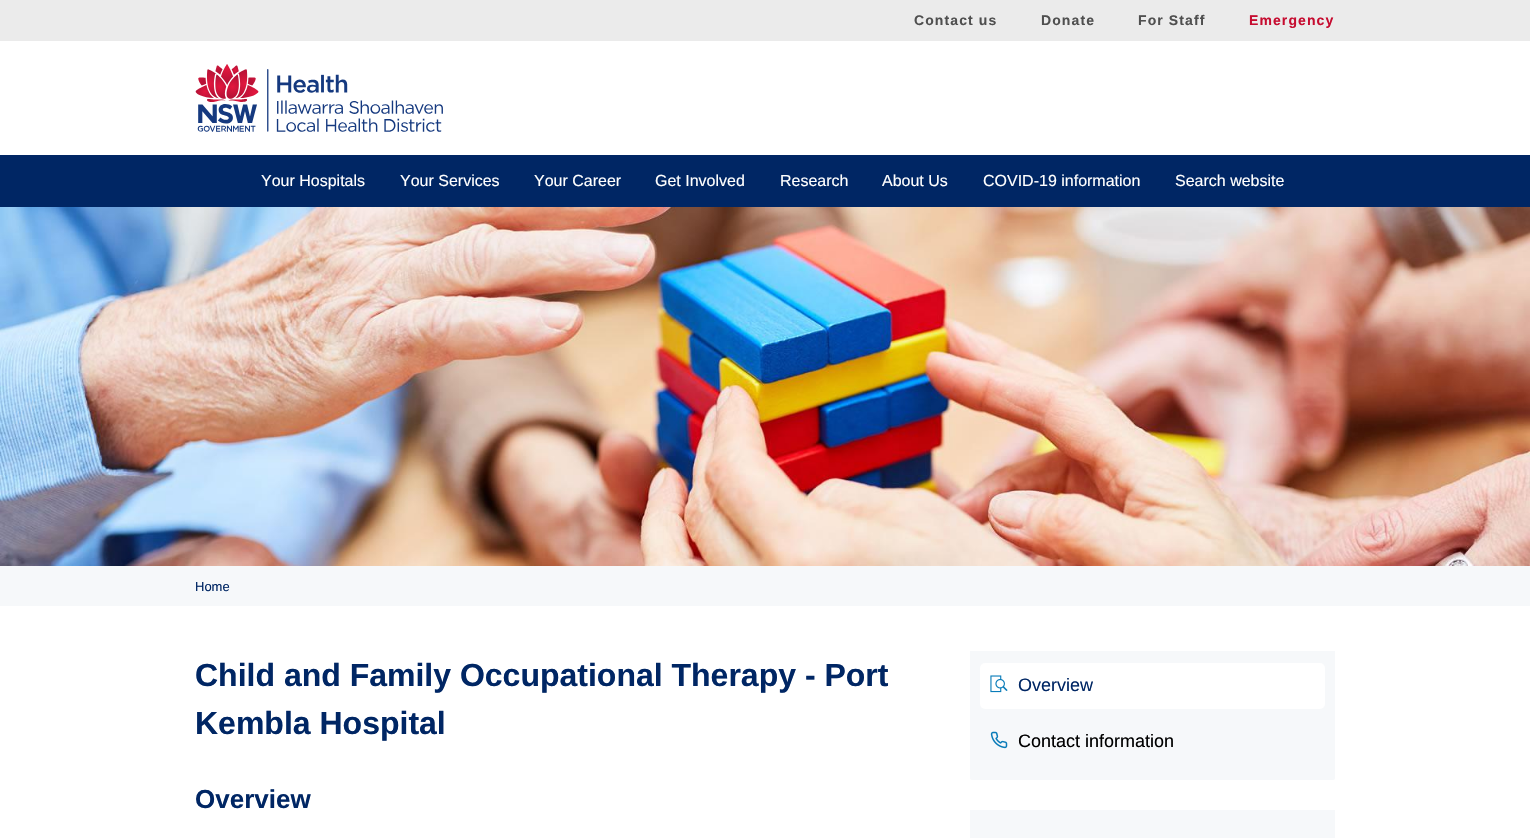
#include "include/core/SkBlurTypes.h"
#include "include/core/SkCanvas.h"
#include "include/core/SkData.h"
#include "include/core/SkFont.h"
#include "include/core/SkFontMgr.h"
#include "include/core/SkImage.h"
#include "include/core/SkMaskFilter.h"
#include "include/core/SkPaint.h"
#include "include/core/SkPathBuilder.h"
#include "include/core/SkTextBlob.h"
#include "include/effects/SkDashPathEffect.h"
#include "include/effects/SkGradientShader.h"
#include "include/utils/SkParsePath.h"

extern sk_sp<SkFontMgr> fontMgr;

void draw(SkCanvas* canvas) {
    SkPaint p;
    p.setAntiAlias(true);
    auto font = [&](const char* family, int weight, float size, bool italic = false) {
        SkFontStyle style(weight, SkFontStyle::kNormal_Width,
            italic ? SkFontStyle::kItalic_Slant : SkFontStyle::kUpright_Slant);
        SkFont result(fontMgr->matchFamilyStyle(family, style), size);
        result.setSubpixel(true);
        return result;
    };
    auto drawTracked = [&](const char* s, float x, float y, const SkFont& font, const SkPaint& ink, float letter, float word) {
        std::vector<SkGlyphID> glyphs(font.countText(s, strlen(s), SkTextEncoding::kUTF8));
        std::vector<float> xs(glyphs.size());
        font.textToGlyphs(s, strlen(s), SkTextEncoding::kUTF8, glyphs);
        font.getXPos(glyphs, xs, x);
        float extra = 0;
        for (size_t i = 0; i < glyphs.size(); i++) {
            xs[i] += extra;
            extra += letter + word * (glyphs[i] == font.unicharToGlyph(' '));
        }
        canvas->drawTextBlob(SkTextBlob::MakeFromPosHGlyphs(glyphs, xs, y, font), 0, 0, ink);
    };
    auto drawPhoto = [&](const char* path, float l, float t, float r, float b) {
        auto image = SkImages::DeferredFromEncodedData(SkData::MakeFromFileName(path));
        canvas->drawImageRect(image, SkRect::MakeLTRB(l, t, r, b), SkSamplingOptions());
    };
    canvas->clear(0xFFFFFFFF);
    p.setColor(0xFFEBEBEB);
    canvas->drawRect(SkRect::MakeLTRB(0, 0, 1530, 41), p);
    auto font1 = font("Liberation Sans", 700, 14);
    p.setColor(0xFF4F4F4F);
    {
        const struct { const char* s; float x, y; } items[] = {
            {"Contact us", 914, 25},
            {"Donate", 1041, 25},
            {"For Staff", 1138, 25},
        };
        for (auto [s, x, y] : items) {
            drawTracked(s, x, y, font1, p, 1.1f, 0);
        }
    }
    p.setColor(0xFFC60C30);
    drawTracked("Emergency", 1249, 25, font1, p, 1.1f, 0);
    drawPhoto("media/1.png", 195, 64, 443, 132);
    p.setColor(0xFF002664);
    canvas->drawRect(SkRect::MakeLTRB(0, 155, 1530, 207), p);
    auto font2 = font("Liberation Sans", 400, 16);
    p.setColor(0xFFFFFFFF);
    {
        const struct { const char* s; float x, y; } items[] = {
            {"Your Hospitals", 261, 186},
            {"Your Services", 400, 186},
            {"Your Career", 534, 186},
            {"Get Involved", 655, 186},
            {"Research", 780, 186},
            {"About Us", 882, 186},
            {"COVID-19 information", 983, 186},
            {"Search website", 1175, 186},
        };
        for (auto [s, x, y] : items) {
            canvas->drawString(s, x, y, font2, p);
        }
    }
    drawPhoto("media/2.png", 0, 207, 1530, 566);
    p.setColor(0xFFF6F8FA);
    canvas->drawRect(SkRect::MakeLTRB(0, 566, 1530, 606), p);
    auto font3 = font("Liberation Sans", 400, 13);
    p.setColor(0xFF002664);
    canvas->drawString("Home", 195, 591, font3, p);
    auto font4 = font("Liberation Sans", 700, 32);
    canvas->drawString("Child and Family Occupational Therapy - Port", 195, 686, font4, p);
    canvas->drawString("Kembla Hospital", 195, 734, font4, p);
    auto font5 = font("Liberation Sans", 700, 26);
    canvas->drawString("Overview", 195, 808, font5, p);
    p.setColor(0xFFF6F8FA);
    canvas->drawPath(SkPathBuilder().moveTo(970, 651).lineTo(1335, 651).lineTo(1335, 778).cubicTo(1335, 779, 1334, 780, 1333, 780).lineTo(972, 780).cubicTo(971, 780, 970, 779, 970, 778).close().detach(), p);
    p.setColor(0xFFFFFFFF);
    canvas->drawRoundRect(SkRect::MakeLTRB(980, 663, 1325, 709), 5, 5, p);
    drawPhoto("media/3.png", 990, 675, 1008, 693);
    auto font6 = font("Liberation Sans", 400, 18);
    p.setColor(0xFF002664);
    canvas->drawString("Overview", 1018, 691, font6, p);
    drawPhoto("media/4.png", 990, 731, 1008, 749);
    p.setColor(0xFF000000);
    canvas->drawString("Contact information", 1018, 747, font6, p);
    p.setColor(0xFFF6F8FA);
    canvas->drawRect(SkRect::MakeLTRB(970, 810, 1335, 838), p);
}
